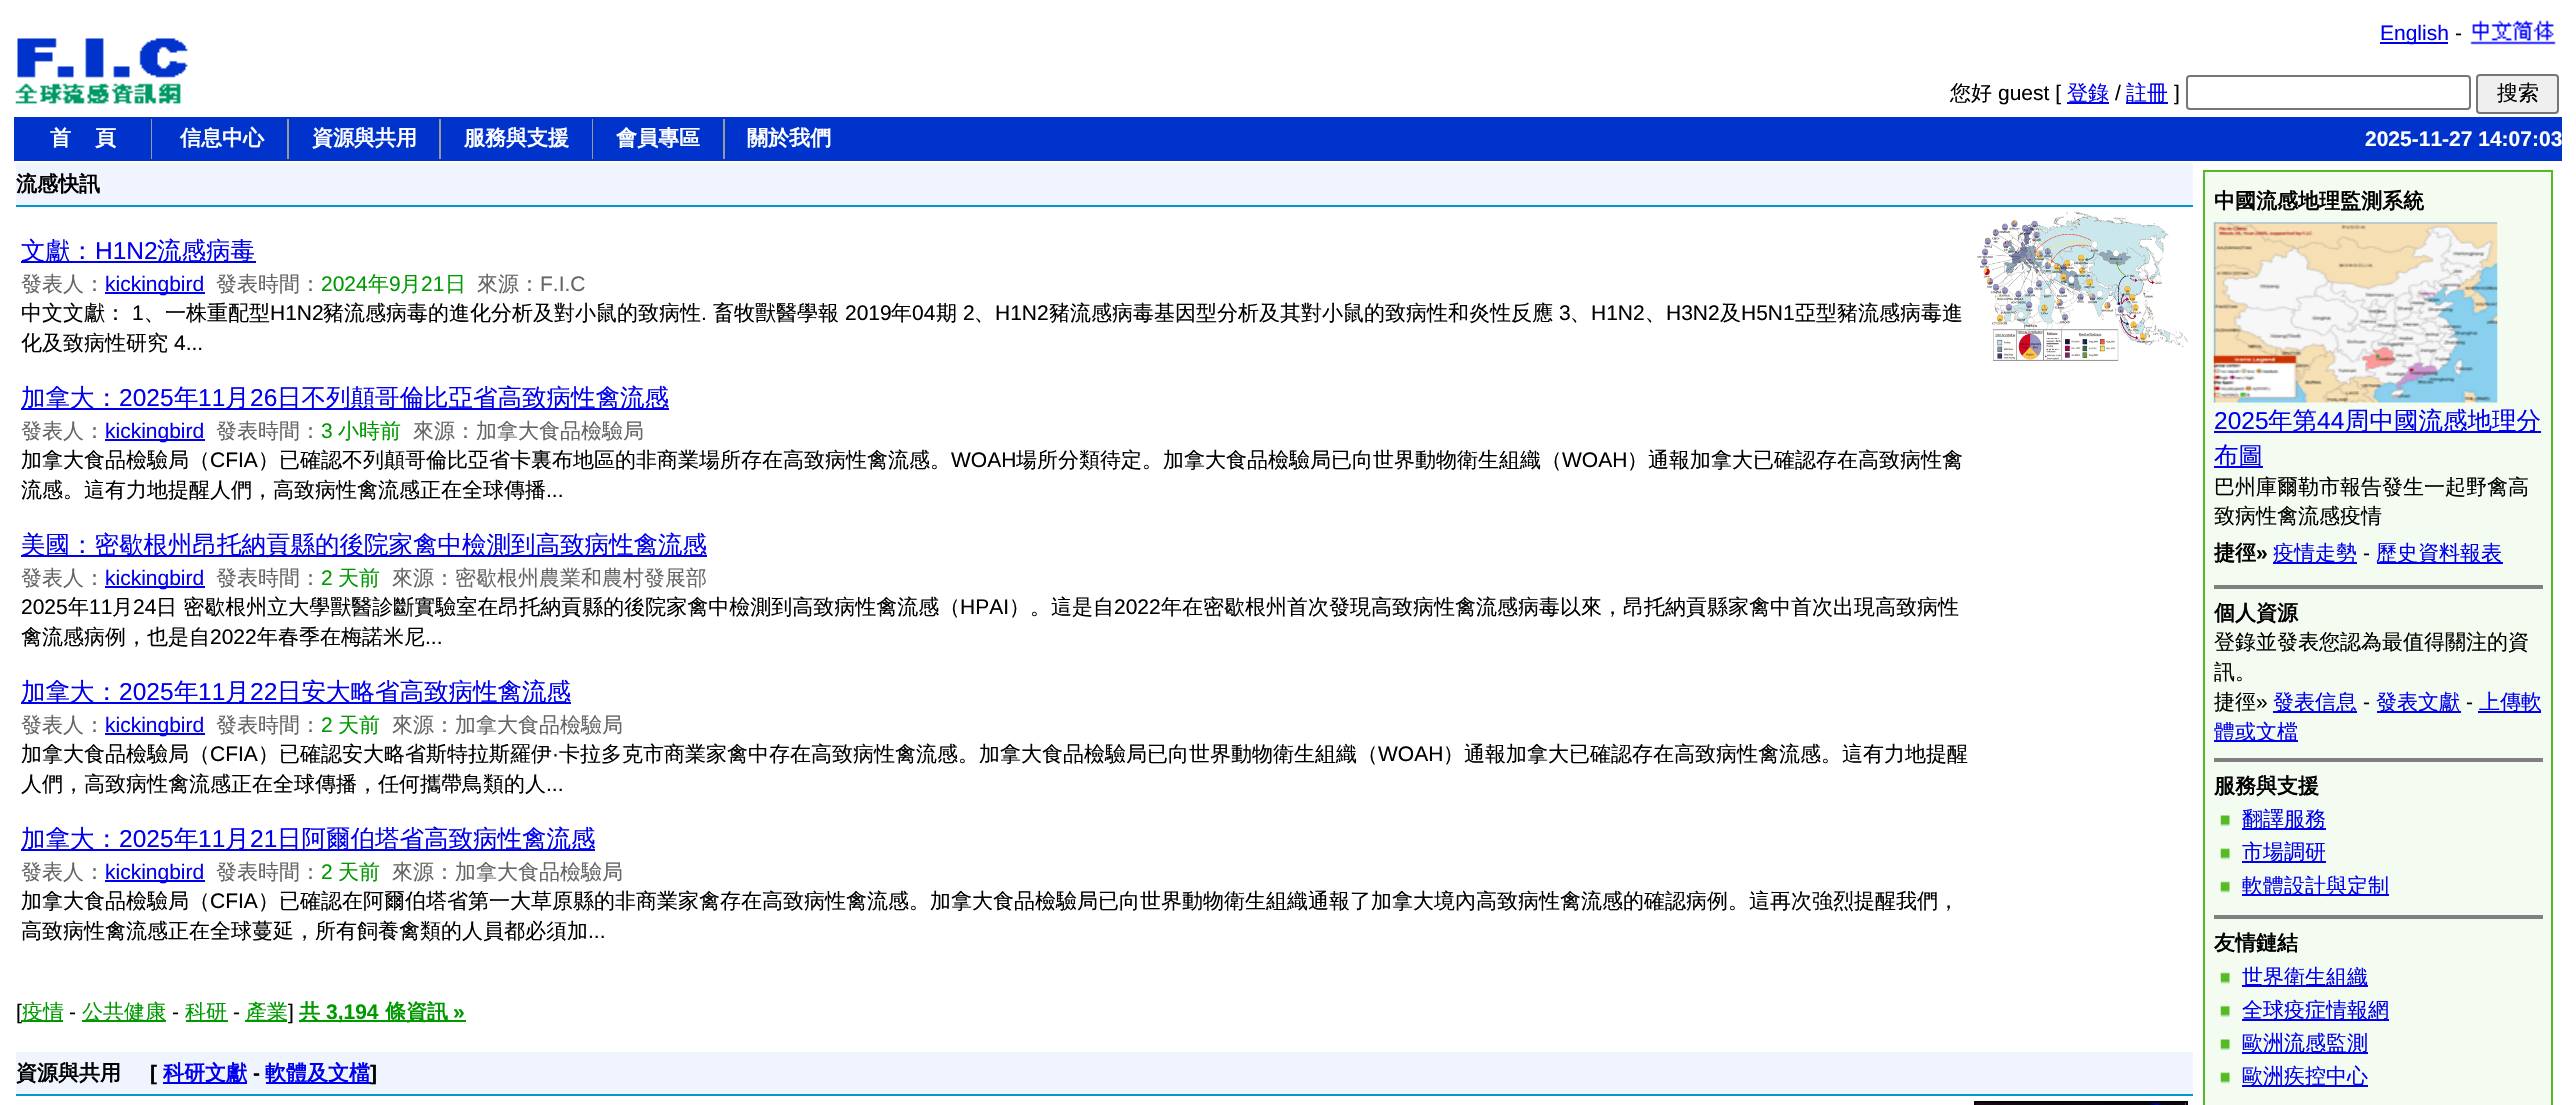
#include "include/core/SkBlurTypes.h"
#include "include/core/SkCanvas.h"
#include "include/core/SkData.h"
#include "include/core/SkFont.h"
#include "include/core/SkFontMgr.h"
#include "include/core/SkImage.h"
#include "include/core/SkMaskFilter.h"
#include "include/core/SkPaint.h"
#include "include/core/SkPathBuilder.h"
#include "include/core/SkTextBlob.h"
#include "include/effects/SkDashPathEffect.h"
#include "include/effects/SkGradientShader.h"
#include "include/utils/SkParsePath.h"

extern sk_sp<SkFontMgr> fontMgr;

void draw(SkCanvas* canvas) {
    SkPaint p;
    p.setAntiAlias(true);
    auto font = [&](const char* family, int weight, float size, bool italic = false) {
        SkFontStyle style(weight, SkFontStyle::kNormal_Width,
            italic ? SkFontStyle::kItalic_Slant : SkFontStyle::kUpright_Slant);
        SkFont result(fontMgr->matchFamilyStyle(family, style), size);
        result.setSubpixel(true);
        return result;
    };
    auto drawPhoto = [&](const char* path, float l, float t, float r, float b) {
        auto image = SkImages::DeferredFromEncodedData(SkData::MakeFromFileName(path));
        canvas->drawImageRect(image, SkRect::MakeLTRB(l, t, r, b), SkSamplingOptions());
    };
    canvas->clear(0xFFFFFFFF);
    drawPhoto("media/1.png", 15, 38, 188, 104);
    p.setColor(0xFF0000EE);
    canvas->drawRect(SkRect::MakeLTRB(2380, 42, 2448, 44), p);
    auto font1 = font("Liberation Sans", 400, 21);
    canvas->drawString("English", 2380, 40, font1, p);
    p.setColor(0xFF000000);
    canvas->drawString("-", 2455, 40, font1, p);
    drawPhoto("media/2.png", 2470, 20, 2556, 45);
    auto font2 = font("WenQuanYi Zen Hei", 500, 21);
    canvas->drawString("您好", 1950, 100, font2, p);
    canvas->drawString("guest [", 1998, 100, font1, p);
    p.setColor(0xFF0000EE);
    canvas->drawRect(SkRect::MakeLTRB(2067, 102, 2109, 104), p);
    canvas->drawString("登錄", 2067, 100, font2, p);
    p.setColor(0xFF000000);
    canvas->drawString("/", 2115, 100, font1, p);
    p.setColor(0xFF0000EE);
    canvas->drawRect(SkRect::MakeLTRB(2126, 102, 2168, 104), p);
    canvas->drawString("註冊", 2126, 100, font2, p);
    p.setColor(0xFF000000);
    canvas->drawString("]", 2174, 100, font1, p);
    p.setStyle(SkPaint::kStroke_Style);
    p.setStrokeWidth(2);
    p.setColor(0xFF767676);
    canvas->drawRoundRect(SkRect::MakeLTRB(2187, 76, 2470, 109), 3, 3, p);
    p.setStyle(SkPaint::kFill_Style);
    p.setColor(0xFFEFEFEF);
    canvas->drawRoundRect(SkRect::MakeLTRB(2477, 75, 2558, 113), 3, 3, p);
    p.setStyle(SkPaint::kStroke_Style);
    p.setColor(0xFF767676);
    canvas->drawRoundRect(SkRect::MakeLTRB(2477, 75, 2558, 113), 3, 3, p);
    p.setStyle(SkPaint::kFill_Style);
    p.setColor(0xFF000000);
    canvas->drawString("搜索", 2497, 100, font2, p);
    p.setColor(0xFF0033CC);
    canvas->drawRect(SkRect::MakeLTRB(856, 117, 2562, 161), p);
    p.setStyle(SkPaint::kStroke_Style);
    canvas->drawRect(SkRect::MakeLTRB(15, 118, 855, 160), p);
    p.setStyle(SkPaint::kFill_Style);
    canvas->drawRect(SkRect::MakeLTRB(16, 119, 151, 159), p);
    auto font3 = font("WenQuanYi Zen Hei", 700, 21);
    p.setColor(0xFFFFFFFF);
    canvas->drawString("首", 50, 145, font3, p);
    canvas->drawString("頁", 95, 145, font3, p);
    p.setColor(0xFF999999);
    canvas->drawRect(SkRect::MakeLTRB(151, 119, 152, 159), p);
    p.setColor(0xFF0033CC);
    canvas->drawRect(SkRect::MakeLTRB(152, 119, 287, 159), p);
    p.setColor(0xFFFFFFFF);
    canvas->drawString("信息中心", 180, 145, font3, p);
    p.setColor(0xFF999999);
    canvas->drawRect(SkRect::MakeLTRB(287, 119, 289, 159), p);
    p.setColor(0xFF0033CC);
    canvas->drawRect(SkRect::MakeLTRB(289, 119, 439, 159), p);
    p.setColor(0xFFFFFFFF);
    canvas->drawString("資源與共用", 312, 145, font3, p);
    p.setColor(0xFF999999);
    canvas->drawRect(SkRect::MakeLTRB(439, 119, 441, 159), p);
    p.setColor(0xFF0033CC);
    canvas->drawRect(SkRect::MakeLTRB(441, 119, 592, 159), p);
    p.setColor(0xFFFFFFFF);
    canvas->drawString("服務與支援", 464, 145, font3, p);
    p.setColor(0xFF999999);
    canvas->drawRect(SkRect::MakeLTRB(592, 119, 593, 159), p);
    p.setColor(0xFF0033CC);
    canvas->drawRect(SkRect::MakeLTRB(593, 119, 723, 159), p);
    p.setColor(0xFFFFFFFF);
    canvas->drawString("會員專區", 616, 145, font3, p);
    p.setColor(0xFF999999);
    canvas->drawRect(SkRect::MakeLTRB(723, 119, 725, 159), p);
    p.setColor(0xFF0033CC);
    canvas->drawRect(SkRect::MakeLTRB(725, 119, 854, 159), p);
    p.setColor(0xFFFFFFFF);
    canvas->drawString("關於我們", 747, 145, font3, p);
    auto font4 = font("Liberation Sans", 700, 21);
    canvas->drawString("2025-11-27 14:07:03", 2365, 146, font4, p);
    p.setColor(0xFFEFF4FE);
    canvas->drawRect(SkRect::MakeLTRB(16, 163, 2193, 205), p);
    p.setColor(0xFF0099CC);
    canvas->drawRect(SkRect::MakeLTRB(16, 205, 2193, 207), p);
    p.setColor(0xFF000000);
    canvas->drawString("流感快訊", 16, 191, font3, p);
    p.setColor(0xFF0000EE);
    canvas->drawRect(SkRect::MakeLTRB(21, 261, 256, 263), p);
    auto font5 = font("WenQuanYi Zen Hei", 500, 24.5f);
    canvas->drawString("文獻：", 21, 259, font5, p);
    auto font6 = font("Liberation Sans", 400, 24.5f);
    canvas->drawString("H1N2", 95, 259, font6, p);
    canvas->drawString("流感病毒", 157, 259, font5, p);
    p.setColor(0xFF666666);
    canvas->drawString("發表人：", 21, 291, font2, p);
    p.setColor(0xFF0000EE);
    canvas->drawRect(SkRect::MakeLTRB(105, 292, 205, 294), p);
    canvas->drawString("kickingbird", 105, 291, font1, p);
    p.setColor(0xFF666666);
    canvas->drawString("發表時間：", 216, 291, font2, p);
    p.setColor(0xFF009900);
    canvas->drawString("2024", 321, 291, font1, p);
    canvas->drawString("年", 368, 291, font2, p);
    canvas->drawString("9", 389, 291, font1, p);
    canvas->drawString("月", 400, 291, font2, p);
    canvas->drawString("21", 421, 291, font1, p);
    canvas->drawString("日", 445, 291, font2, p);
    p.setColor(0xFF666666);
    canvas->drawString("來源：", 477, 291, font2, p);
    canvas->drawString("F.I.C", 540, 291, font1, p);
    p.setColor(0xFF000000);
    canvas->drawString("中文文獻：", 21, 320, font2, p);
    canvas->drawString("1", 132, 320, font1, p);
    canvas->drawString("、一株重配型", 144, 320, font2, p);
    canvas->drawString("H1N2", 270, 320, font1, p);
    canvas->drawString("豬流感病毒的進化分析及對小鼠的致病性", 323, 320, font2, p);
    canvas->drawString(".", 701, 320, font1, p);
    canvas->drawString("畜牧獸醫學報", 713, 320, font2, p);
    canvas->drawString("2019", 845, 320, font1, p);
    canvas->drawString("年", 891, 320, font2, p);
    canvas->drawString("04", 912, 320, font1, p);
    canvas->drawString("期", 936, 320, font2, p);
    canvas->drawString("2", 963, 320, font1, p);
    canvas->drawString("、", 974, 320, font2, p);
    canvas->drawString("H1N2", 995, 320, font1, p);
    canvas->drawString("豬流感病毒基因型分析及其對小鼠的致病性和炎性反應", 1049, 320, font2, p);
    canvas->drawString("3", 1559, 320, font1, p);
    canvas->drawString("、", 1570, 320, font2, p);
    canvas->drawString("H1N2", 1591, 320, font1, p);
    canvas->drawString("、", 1645, 320, font2, p);
    canvas->drawString("H3N2", 1666, 320, font1, p);
    canvas->drawString("及", 1720, 320, font2, p);
    canvas->drawString("H5N1", 1741, 320, font1, p);
    canvas->drawString("亞型豬流感病毒進", 1795, 320, font2, p);
    canvas->drawString("化及致病性研究", 21, 350, font2, p);
    canvas->drawString("4...", 174, 350, font1, p);
    p.setColor(0xFF0000EE);
    canvas->drawRect(SkRect::MakeLTRB(21, 408, 669, 410), p);
    canvas->drawString("加拿大：", 21, 406, font5, p);
    canvas->drawString("2025", 119, 406, font6, p);
    canvas->drawString("年", 174, 406, font5, p);
    canvas->drawString("11", 198, 406, font6, p);
    canvas->drawString("月", 225, 406, font5, p);
    canvas->drawString("26", 250, 406, font6, p);
    canvas->drawString("日不列顛哥倫比亞省高致病性禽流感", 277, 406, font5, p);
    p.setColor(0xFF666666);
    canvas->drawString("發表人：", 21, 438, font2, p);
    p.setColor(0xFF0000EE);
    canvas->drawRect(SkRect::MakeLTRB(105, 439, 205, 441), p);
    canvas->drawString("kickingbird", 105, 438, font1, p);
    p.setColor(0xFF666666);
    canvas->drawString("發表時間：", 216, 438, font2, p);
    p.setColor(0xFF009900);
    canvas->drawString("3", 321, 438, font1, p);
    canvas->drawString("小時前", 338, 438, font2, p);
    p.setColor(0xFF666666);
    canvas->drawString("來源：加拿大食品檢驗局", 413, 438, font2, p);
    p.setColor(0xFF000000);
    canvas->drawString("加拿大食品檢驗局（", 21, 467, font2, p);
    canvas->drawString("CFIA", 210, 467, font1, p);
    canvas->drawString("）已確認不列顛哥倫比亞省卡裏布地區的非商業場所存在高致病性禽流感。", 258, 467, font2, p);
    canvas->drawString("WOAH", 951, 467, font1, p);
    canvas->drawString("場所分類待定。加拿大食品檢驗局已向世界動物衛生組織（", 1016, 467, font2, p);
    canvas->drawString("WOAH", 1562, 467, font1, p);
    canvas->drawString("）通報加拿大已確認存在高致病性禽", 1627, 467, font2, p);
    canvas->drawString("流感。這有力地提醒人們，高致病性禽流感正在全球傳播", 21, 497, font2, p);
    canvas->drawString("...", 546, 497, font1, p);
    p.setColor(0xFF0000EE);
    canvas->drawRect(SkRect::MakeLTRB(21, 555, 707, 557), p);
    canvas->drawString("美國：密歇根州昂托納貢縣的後院家禽中檢測到高致病性禽流感", 21, 553, font5, p);
    p.setColor(0xFF666666);
    canvas->drawString("發表人：", 21, 585, font2, p);
    p.setColor(0xFF0000EE);
    canvas->drawRect(SkRect::MakeLTRB(105, 586, 205, 588), p);
    canvas->drawString("kickingbird", 105, 585, font1, p);
    p.setColor(0xFF666666);
    canvas->drawString("發表時間：", 216, 585, font2, p);
    p.setColor(0xFF009900);
    canvas->drawString("2", 321, 585, font1, p);
    canvas->drawString("天前", 338, 585, font2, p);
    p.setColor(0xFF666666);
    canvas->drawString("來源：密歇根州農業和農村發展部", 392, 585, font2, p);
    p.setColor(0xFF000000);
    canvas->drawString("2025", 21, 614, font1, p);
    canvas->drawString("年", 68, 614, font2, p);
    canvas->drawString("11", 89, 614, font1, p);
    canvas->drawString("月", 112, 614, font2, p);
    canvas->drawString("24", 133, 614, font1, p);
    canvas->drawString("日 密歇根州立大學獸醫診斷實驗室在昂托納貢縣的後院家禽中檢測到高致病性禽流感（", 156, 614, font2, p);
    canvas->drawString("HPAI", 960, 614, font1, p);
    canvas->drawString("）。這是自", 1009, 614, font2, p);
    canvas->drawString("2022", 1114, 614, font1, p);
    canvas->drawString("年在密歇根州首次發現高致病性禽流感病毒以來，昂托納貢縣家禽中首次出現高致病性", 1161, 614, font2, p);
    canvas->drawString("禽流感病例，也是自", 21, 644, font2, p);
    canvas->drawString("2022", 210, 644, font1, p);
    canvas->drawString("年春季在梅諾米尼", 257, 644, font2, p);
    canvas->drawString("...", 425, 644, font1, p);
    p.setColor(0xFF0000EE);
    canvas->drawRect(SkRect::MakeLTRB(21, 702, 571, 704), p);
    canvas->drawString("加拿大：", 21, 700, font5, p);
    canvas->drawString("2025", 119, 700, font6, p);
    canvas->drawString("年", 174, 700, font5, p);
    canvas->drawString("11", 198, 700, font6, p);
    canvas->drawString("月", 225, 700, font5, p);
    canvas->drawString("22", 250, 700, font6, p);
    canvas->drawString("日安大略省高致病性禽流感", 277, 700, font5, p);
    p.setColor(0xFF666666);
    canvas->drawString("發表人：", 21, 732, font2, p);
    p.setColor(0xFF0000EE);
    canvas->drawRect(SkRect::MakeLTRB(105, 733, 205, 735), p);
    canvas->drawString("kickingbird", 105, 732, font1, p);
    p.setColor(0xFF666666);
    canvas->drawString("發表時間：", 216, 732, font2, p);
    p.setColor(0xFF009900);
    canvas->drawString("2", 321, 732, font1, p);
    canvas->drawString("天前", 338, 732, font2, p);
    p.setColor(0xFF666666);
    canvas->drawString("來源：加拿大食品檢驗局", 392, 732, font2, p);
    p.setColor(0xFF000000);
    canvas->drawString("加拿大食品檢驗局（", 21, 761, font2, p);
    canvas->drawString("CFIA", 210, 761, font1, p);
    canvas->drawString("）已確認安大略省斯特拉斯羅伊", 258, 761, font2, p);
    canvas->drawString("·", 552, 761, font1, p);
    canvas->drawString("卡拉多克市商業家禽中存在高致病性禽流感。加拿大食品檢驗局已向世界動物衛生組織（", 559, 761, font2, p);
    canvas->drawString("WOAH", 1378, 761, font1, p);
    canvas->drawString("）通報加拿大已確認存在高致病性禽流感。這有力地提醒", 1443, 761, font2, p);
    canvas->drawString("人們，高致病性禽流感正在全球傳播，任何攜帶鳥類的人", 21, 791, font2, p);
    canvas->drawString("...", 546, 791, font1, p);
    p.setColor(0xFF0000EE);
    canvas->drawRect(SkRect::MakeLTRB(21, 849, 595, 851), p);
    canvas->drawString("加拿大：", 21, 847, font5, p);
    canvas->drawString("2025", 119, 847, font6, p);
    canvas->drawString("年", 174, 847, font5, p);
    canvas->drawString("11", 198, 847, font6, p);
    canvas->drawString("月", 225, 847, font5, p);
    canvas->drawString("21", 250, 847, font6, p);
    canvas->drawString("日阿爾伯塔省高致病性禽流感", 277, 847, font5, p);
    p.setColor(0xFF666666);
    canvas->drawString("發表人：", 21, 879, font2, p);
    p.setColor(0xFF0000EE);
    canvas->drawRect(SkRect::MakeLTRB(105, 880, 205, 882), p);
    canvas->drawString("kickingbird", 105, 879, font1, p);
    p.setColor(0xFF666666);
    canvas->drawString("發表時間：", 216, 879, font2, p);
    p.setColor(0xFF009900);
    canvas->drawString("2", 321, 879, font1, p);
    canvas->drawString("天前", 338, 879, font2, p);
    p.setColor(0xFF666666);
    canvas->drawString("來源：加拿大食品檢驗局", 392, 879, font2, p);
    p.setColor(0xFF000000);
    canvas->drawString("加拿大食品檢驗局（", 21, 908, font2, p);
    canvas->drawString("CFIA", 210, 908, font1, p);
    canvas->drawString("）已確認在阿爾伯塔省第一大草原縣的非商業家禽存在高致病性禽流感。加拿大食品檢驗局已向世界動物衛生組織通報了加拿大境內高致病性禽流感的確認病例。這再次強烈提醒我們，", 258, 908, font2, p);
    canvas->drawString("高致病性禽流感正在全球蔓延，所有飼養禽類的人員都必須加", 21, 938, font2, p);
    canvas->drawString("...", 588, 938, font1, p);
    drawPhoto("media/3.png", 1977, 211, 2188, 361);
    canvas->drawString("[", 16, 1019, font1, p);
    p.setColor(0xFF009900);
    canvas->drawRect(SkRect::MakeLTRB(21, 1020, 63, 1022), p);
    canvas->drawString("疫情", 22, 1019, font2, p);
    p.setColor(0xFF000000);
    canvas->drawString("-", 69, 1019, font1, p);
    p.setColor(0xFF009900);
    canvas->drawRect(SkRect::MakeLTRB(82, 1020, 166, 1022), p);
    canvas->drawString("公共健康", 82, 1019, font2, p);
    p.setColor(0xFF000000);
    canvas->drawString("-", 172, 1019, font1, p);
    p.setColor(0xFF009900);
    canvas->drawRect(SkRect::MakeLTRB(186, 1020, 228, 1022), p);
    canvas->drawString("科研", 185, 1019, font2, p);
    p.setColor(0xFF000000);
    canvas->drawString("-", 233, 1019, font1, p);
    p.setColor(0xFF009900);
    canvas->drawRect(SkRect::MakeLTRB(245, 1020, 287, 1022), p);
    canvas->drawString("產業", 246, 1019, font2, p);
    p.setColor(0xFF000000);
    canvas->drawString("]", 288, 1019, font1, p);
    p.setColor(0xFF009900);
    canvas->drawRect(SkRect::MakeLTRB(299, 1020, 466, 1022), p);
    canvas->drawString("共", 299, 1019, font3, p);
    canvas->drawString("3,194", 326, 1019, font4, p);
    canvas->drawString("條資訊", 385, 1019, font3, p);
    canvas->drawString("»", 453, 1019, font4, p);
    p.setColor(0xFFEFF4FE);
    canvas->drawRect(SkRect::MakeLTRB(16, 1052, 2193, 1094), p);
    p.setColor(0xFF0099CC);
    canvas->drawRect(SkRect::MakeLTRB(16, 1094, 2193, 1096), p);
    p.setColor(0xFF000000);
    canvas->drawString("資源與共用", 16, 1080, font3, p);
    canvas->drawString("[", 150, 1080, font4, p);
    p.setColor(0xFF0000EE);
    canvas->drawRect(SkRect::MakeLTRB(163, 1082, 247, 1084), p);
    canvas->drawString("科研文獻", 163, 1080, font3, p);
    p.setColor(0xFF000000);
    canvas->drawString("-", 253, 1080, font4, p);
    p.setColor(0xFF0000EE);
    canvas->drawRect(SkRect::MakeLTRB(266, 1082, 371, 1084), p);
    canvas->drawString("軟體及文檔", 265, 1080, font3, p);
    p.setColor(0xFF000000);
    canvas->drawString("]", 370, 1080, font4, p);
    p.setStyle(SkPaint::kStroke_Style);
    canvas->drawRect(SkRect::MakeLTRB(1975, 1102, 2187, 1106), p);
    drawPhoto("media/4.png", 1975, 1102, 2186, 1105);
    p.setStyle(SkPaint::kFill_Style);
    p.setColor(0xFFF4FCF1);
    canvas->drawRect(SkRect::MakeLTRB(2204, 171, 2552, 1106), p);
    p.setStyle(SkPaint::kStroke_Style);
    p.setColor(0xFF56BA24);
    canvas->drawRect(SkRect::MakeLTRB(2204, 171, 2552, 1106), p);
    p.setStyle(SkPaint::kFill_Style);
    p.setColor(0xFF000000);
    canvas->drawString("中國流感地理監測系統", 2214, 208, font3, p);
    drawPhoto("media/5.png", 2213, 222, 2498, 403);
    p.setColor(0xFF0000EE);
    canvas->drawString("2025", 2214, 429, font6, p);
    canvas->drawRect(SkRect::MakeLTRB(2214, 431, 2541, 433), p);
    canvas->drawString("年第", 2268, 429, font5, p);
    canvas->drawString("44", 2317, 429, font6, p);
    canvas->drawString("周中國流感地理分", 2345, 429, font5, p);
    canvas->drawRect(SkRect::MakeLTRB(2214, 466, 2263, 468), p);
    canvas->drawString("布圖", 2214, 464, font5, p);
    p.setColor(0xFF000000);
    canvas->drawString("巴州庫爾勒市報告發生一起野禽高", 2214, 494, font2, p);
    canvas->drawString("致病性禽流感疫情", 2214, 523, font2, p);
    canvas->drawString("捷徑", 2214, 560, font3, p);
    canvas->drawString("»", 2256, 560, font4, p);
    p.setColor(0xFF0000EE);
    canvas->drawRect(SkRect::MakeLTRB(2273, 562, 2357, 564), p);
    canvas->drawString("疫情走勢", 2273, 560, font2, p);
    p.setColor(0xFF000000);
    canvas->drawString("-", 2363, 560, font1, p);
    p.setColor(0xFF0000EE);
    canvas->drawRect(SkRect::MakeLTRB(2377, 562, 2503, 564), p);
    canvas->drawString("歷史資料報表", 2376, 560, font2, p);
    p.setColor(0xFF808080);
    canvas->drawRect(SkRect::MakeLTRB(2214, 585, 2543, 589), p);
    p.setColor(0xFF000000);
    canvas->drawString("個人資源", 2214, 620, font3, p);
    {
        const struct { const char* s; float x, y; } items[] = {
            {"登錄並發表您認為最值得關注的資", 2214, 649},
            {"訊。", 2214, 679},
            {"捷徑", 2214, 709},
        };
        for (auto [s, x, y] : items) {
            canvas->drawString(s, x, y, font2, p);
        }
    }
    canvas->drawString("»", 2256, 709, font1, p);
    p.setColor(0xFF0000EE);
    canvas->drawRect(SkRect::MakeLTRB(2273, 711, 2357, 713), p);
    canvas->drawString("發表信息", 2273, 709, font2, p);
    p.setColor(0xFF000000);
    canvas->drawString("-", 2363, 709, font1, p);
    p.setColor(0xFF0000EE);
    canvas->drawRect(SkRect::MakeLTRB(2377, 711, 2461, 713), p);
    canvas->drawString("發表文獻", 2376, 709, font2, p);
    p.setColor(0xFF000000);
    canvas->drawString("-", 2466, 709, font1, p);
    p.setColor(0xFF0000EE);
    canvas->drawRect(SkRect::MakeLTRB(2478, 711, 2541, 713), p);
    canvas->drawString("上傳軟", 2479, 709, font2, p);
    canvas->drawRect(SkRect::MakeLTRB(2214, 740, 2298, 742), p);
    canvas->drawString("體或文檔", 2214, 739, font2, p);
    p.setColor(0xFF808080);
    canvas->drawRect(SkRect::MakeLTRB(2214, 758, 2543, 762), p);
    p.setColor(0xFF000000);
    canvas->drawString("服務與支援", 2214, 793, font3, p);
    drawPhoto("media/6.png", 2220, 815, 2230, 826);
    p.setColor(0xFF0000EE);
    canvas->drawRect(SkRect::MakeLTRB(2242, 828, 2326, 830), p);
    canvas->drawString("翻譯服務", 2242, 826, font2, p);
    drawPhoto("media/7.png", 2220, 848, 2230, 860);
    canvas->drawRect(SkRect::MakeLTRB(2242, 861, 2326, 863), p);
    canvas->drawString("市場調研", 2242, 859, font2, p);
    drawPhoto("media/8.png", 2220, 881, 2230, 893);
    canvas->drawRect(SkRect::MakeLTRB(2242, 894, 2389, 896), p);
    canvas->drawString("軟體設計與定制", 2242, 893, font2, p);
    p.setColor(0xFF808080);
    canvas->drawRect(SkRect::MakeLTRB(2214, 915, 2543, 919), p);
    p.setColor(0xFF000000);
    canvas->drawString("友情鏈結", 2214, 950, font3, p);
    drawPhoto("media/8.png", 2220, 972, 2230, 984);
    p.setColor(0xFF0000EE);
    canvas->drawRect(SkRect::MakeLTRB(2242, 985, 2368, 987), p);
    canvas->drawString("世界衛生組織", 2242, 984, font2, p);
    drawPhoto("media/9.png", 2220, 1005, 2230, 1017);
    canvas->drawRect(SkRect::MakeLTRB(2242, 1019, 2389, 1021), p);
    canvas->drawString("全球疫症情報網", 2242, 1017, font2, p);
    drawPhoto("media/6.png", 2220, 1039, 2230, 1050);
    canvas->drawRect(SkRect::MakeLTRB(2242, 1052, 2368, 1054), p);
    canvas->drawString("歐洲流感監測", 2242, 1050, font2, p);
    drawPhoto("media/7.png", 2220, 1072, 2230, 1084);
    canvas->drawRect(SkRect::MakeLTRB(2242, 1085, 2368, 1087), p);
    canvas->drawString("歐洲疾控中心", 2242, 1083, font2, p);
}
